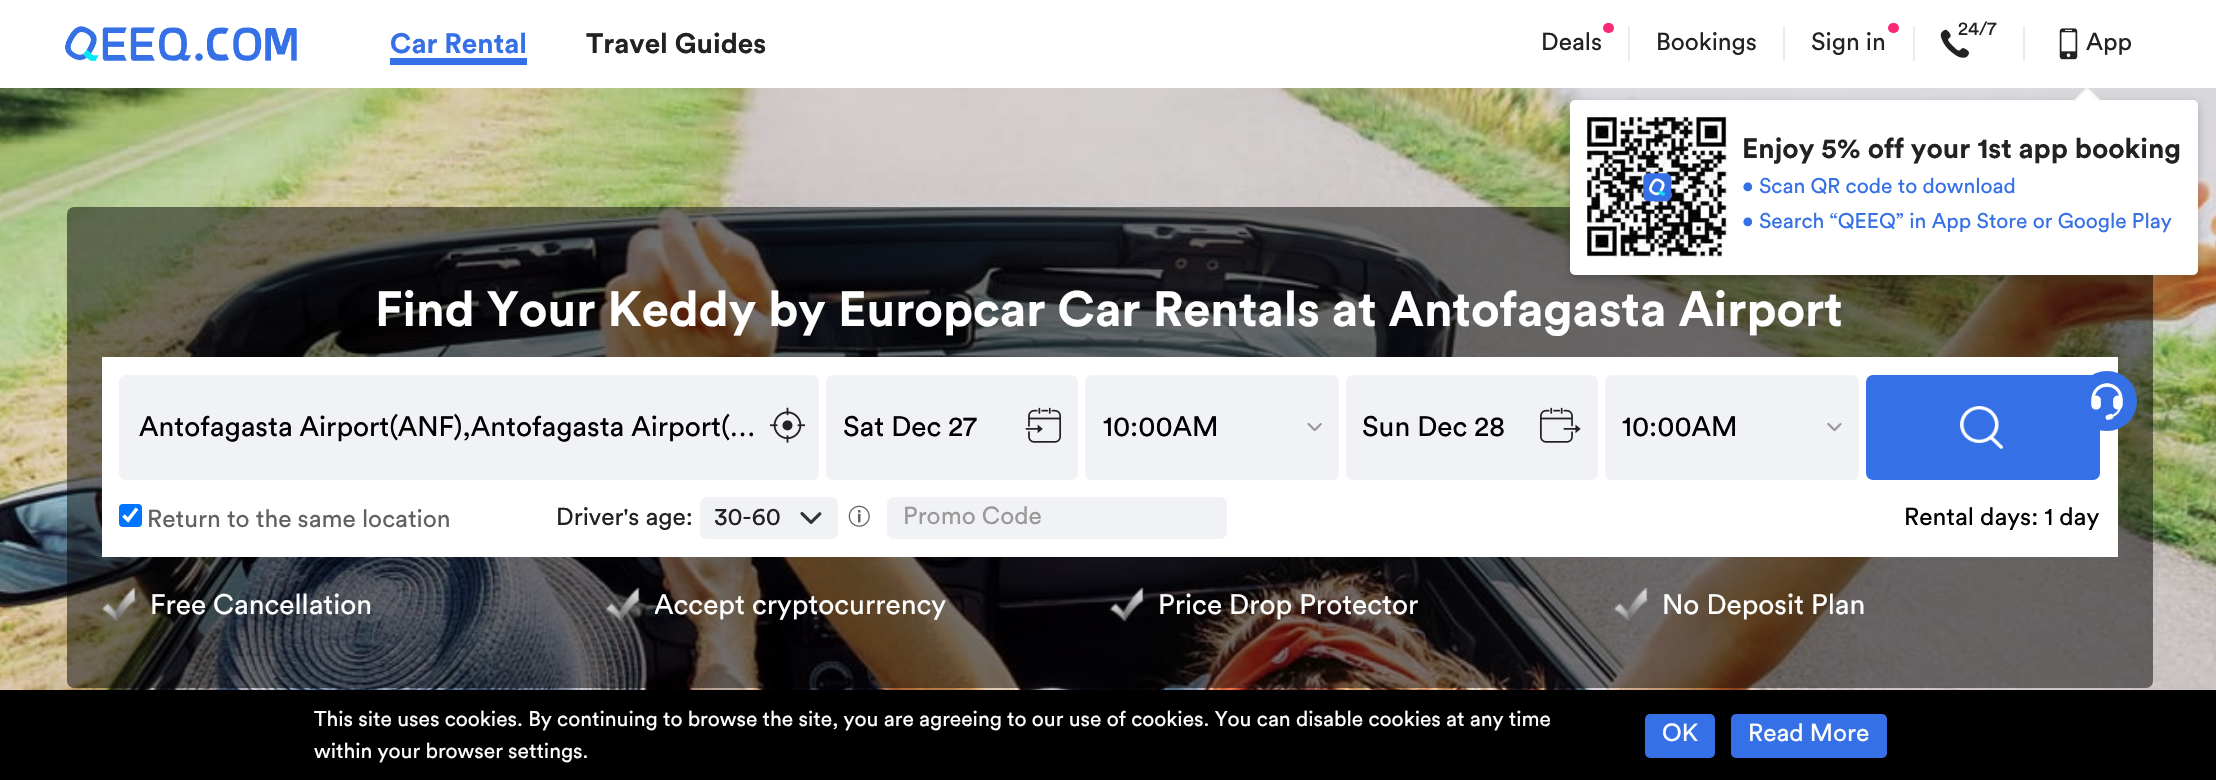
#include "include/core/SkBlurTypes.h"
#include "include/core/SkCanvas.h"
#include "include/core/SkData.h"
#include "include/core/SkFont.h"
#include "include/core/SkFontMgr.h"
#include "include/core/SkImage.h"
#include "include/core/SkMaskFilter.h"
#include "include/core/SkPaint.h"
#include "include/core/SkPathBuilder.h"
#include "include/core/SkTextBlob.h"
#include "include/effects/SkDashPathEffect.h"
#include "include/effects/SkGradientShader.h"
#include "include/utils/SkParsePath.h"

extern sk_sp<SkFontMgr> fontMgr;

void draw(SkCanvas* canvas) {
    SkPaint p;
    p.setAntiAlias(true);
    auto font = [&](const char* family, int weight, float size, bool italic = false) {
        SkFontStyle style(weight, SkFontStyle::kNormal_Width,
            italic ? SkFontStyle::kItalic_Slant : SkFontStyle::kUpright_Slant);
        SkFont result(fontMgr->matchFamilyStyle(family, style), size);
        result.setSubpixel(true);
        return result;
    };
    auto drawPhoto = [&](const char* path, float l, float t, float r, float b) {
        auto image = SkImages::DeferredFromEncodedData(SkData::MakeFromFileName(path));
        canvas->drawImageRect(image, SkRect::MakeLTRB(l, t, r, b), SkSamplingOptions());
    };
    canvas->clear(0xFFFFFFFF);
    drawPhoto("media/1.png", 65, 26, 297, 61);
    auto font1 = font("Circular", 700, 28);
    p.setColor(0xFF3570E6);
    canvas->drawString("Car Rental", 390, 53, font1, p);
    canvas->drawRect(SkRect::MakeLTRB(390, 58, 527, 65), p);
    p.setColor(0xFF222222);
    canvas->drawString("Travel Guides", 586, 53, font1, p);
    drawPhoto("media/2.png", 1940, 29, 1969, 58);
    auto font2 = font("Circular", 400, 19);
    canvas->drawString("24/7", 1958, 35, font2, p);
    p.setColor(0xFFEBEBEB);
    canvas->drawRect(SkRect::MakeLTRB(2023, 26, 2025, 61), p);
    auto font3 = font("Circular", 400, 24.5f);
    p.setColor(0xFF222222);
    canvas->drawString("Deals", 1541, 50, font3, p);
    p.setColor(0xFFF92877);
    canvas->drawRoundRect(SkRect::MakeLTRB(1603, 23, 1614, 33), 5, 5, p);
    p.setColor(0xFFEBEBEB);
    canvas->drawRect(SkRect::MakeLTRB(1628, 26, 1630, 61), p);
    p.setColor(0xFF222222);
    canvas->drawString("Bookings", 1656, 50, font3, p);
    p.setColor(0xFFEBEBEB);
    canvas->drawRect(SkRect::MakeLTRB(1783, 26, 1785, 61), p);
    p.setColor(0xFF222222);
    canvas->drawString("Sign in", 1811, 50, font3, p);
    p.setColor(0xFFF92877);
    canvas->drawRoundRect(SkRect::MakeLTRB(1888, 23, 1899, 33), 5, 5, p);
    p.setColor(0xFFEBEBEB);
    canvas->drawRect(SkRect::MakeLTRB(1913, 26, 1915, 61), p);
    drawPhoto("media/3.png", 2059, 28, 2078, 60);
    p.setColor(0xFF222222);
    canvas->drawString("App", 2086, 50, font3, p);
    drawPhoto("media/6.png", 0, 88, 2216, 690);
    p.setColor(0x80000000);
    canvas->drawRoundRect(SkRect::MakeLTRB(67, 207, 2153, 688), 7, 7, p);
    p.setColor(0x38000000);
    p.setMaskFilter(SkMaskFilter::MakeBlur(kNormal_SkBlurStyle, 5));
    canvas->drawRoundRect(SkRect::MakeLTRB(1570, 103, 2198, 278), 5, 5, p);
    p.setMaskFilter(nullptr);
    p.setColor(0xFFFFFFFF);
    canvas->drawRoundRect(SkRect::MakeLTRB(1570, 100, 2198, 275), 5, 5, p);
    canvas->drawPath(SkPathBuilder().moveTo(2087, 87).lineTo(2101, 100.5f).lineTo(2087, 114).lineTo(2073.5f, 100.5f).close().detach(), p);
    p.setColor(0x4FE0E0E0);
    canvas->drawPath(SkPathBuilder().moveTo(2087, 87).lineTo(2101, 100.5f).lineTo(2099.5f, 102).lineTo(2087, 89.5f).close().moveTo(2073.5f, 100.5f).lineTo(2087, 87).lineTo(2087, 89.5f).lineTo(2075, 102).close().detach(), p);
    drawPhoto("media/4.png", 1587, 117, 1728, 258);
    drawPhoto("media/5.png", 1643, 173, 1672, 202);
    p.setColor(0xFF222222);
    canvas->drawString("Enjoy 5% off your 1st app booking", 1742, 158, font1, p);
    auto font4 = font("Circular", 400, 21);
    p.setColor(0xFF3570E6);
    canvas->drawString("• Scan QR code to download", 1742, 193, font4, p);
    canvas->drawString("• Search “QEEQ” in App Store or Google Play", 1742, 228, font4, p);
    auto font5 = font("Circular", 700, 49);
    p.setColor(0xFFFFFFFF);
    canvas->drawString("Find Your Keddy by Europcar Car Rentals at Antofagasta Airport", 375, 326, font5, p);
    canvas->drawRect(SkRect::MakeLTRB(102, 357, 2118, 557), p);
    p.setColor(0xFFF0F2F5);
    canvas->drawRoundRect(SkRect::MakeLTRB(119, 375, 819, 480), 7, 7, p);
    auto font6 = font("Circular", 400, 28);
    p.setColor(0xFF000000);
    canvas->drawString("Antofagasta Airport(ANF),Antofagasta Airport(…", 139, 436, font6, p);
    drawPhoto("media/7.png", 770, 407, 805, 443);
    p.setColor(0xFFF0F2F5);
    canvas->drawRoundRect(SkRect::MakeLTRB(826, 375, 1078, 480), 7, 7, p);
    p.setColor(0xFF000000);
    canvas->drawString("Sat Dec 27", 843, 436, font6, p);
    drawPhoto("media/8.png", 1025, 407, 1062, 443);
    p.setColor(0xFFF0F2F5);
    canvas->drawRoundRect(SkRect::MakeLTRB(1085, 375, 1339, 480), 7, 7, p);
    p.setColor(0xFF000000);
    canvas->drawString("10:00 AM", 1103, 436, font6, p);
    drawPhoto("media/9.png", 1307, 422, 1322, 432);
    p.setColor(0xFFF0F2F5);
    canvas->drawRoundRect(SkRect::MakeLTRB(1346, 375, 1598, 480), 7, 7, p);
    p.setColor(0xFF000000);
    canvas->drawString("Sun Dec 28", 1362, 436, font6, p);
    drawPhoto("media/10.png", 1540, 407, 1581, 443);
    p.setColor(0xFFF0F2F5);
    canvas->drawRoundRect(SkRect::MakeLTRB(1605, 375, 1859, 480), 7, 7, p);
    p.setColor(0xFF000000);
    canvas->drawString("10:00 AM", 1622, 436, font6, p);
    drawPhoto("media/11.png", 1827, 422, 1842, 432);
    p.setColor(0xFF3570E6);
    canvas->drawRoundRect(SkRect::MakeLTRB(1866, 375, 2100, 480), 7, 7, p);
    drawPhoto("media/12.png", 1960, 406, 2003, 449);
    p.setColor(0xFF0075FF);
    canvas->drawRoundRect(SkRect::MakeLTRB(119, 504, 142, 527), 4, 4, p);
    p.setStyle(SkPaint::kStroke_Style);
    p.setStrokeWidth(3.6f);
    p.setColor(0xFFFFFFFF);
    canvas->drawPath(SkPathBuilder().moveTo(123.5f, 515.5f).lineTo(128, 520).lineTo(137, 508.5f).detach(), p);
    p.setStyle(SkPaint::kFill_Style);
    p.setColor(0xFF616161);
    canvas->drawString("Return to the same location", 147, 527, font3, p);
    p.setColor(0xFF222222);
    canvas->drawString("Driver's age:", 556, 525, font3, p);
    p.setColor(0xFFF0F2F5);
    canvas->drawRoundRect(SkRect::MakeLTRB(700, 497, 838, 539), 7, 7, p);
    p.setColor(0xFF222222);
    canvas->drawString("30-60", 714, 525, font3, p);
    drawPhoto("media/13.png", 800, 512, 822, 524);
    drawPhoto("media/14.png", 848, 505, 870, 527);
    p.setColor(0xFFF0F2F5);
    canvas->drawRoundRect(SkRect::MakeLTRB(888, 498, 1226, 538), 6, 6, p);
    p.setStyle(SkPaint::kStroke_Style);
    p.setStrokeWidth(2);
    canvas->drawRoundRect(SkRect::MakeLTRB(888, 498, 1226, 538), 6, 6, p);
    p.setStyle(SkPaint::kFill_Style);
    p.setColor(0xFF999999);
    canvas->drawString("Promo Code", 903, 524, font3, p);
    p.setColor(0xFF000000);
    canvas->drawString("Rental days: 1 day", 1904, 525, font3, p);
    drawPhoto("media/15.png", 101, 588, 137, 622);
    p.setColor(0xFFFFFFFF);
    canvas->drawString("Free Cancellation", 150, 614, font6, p);
    drawPhoto("media/16.png", 605, 588, 641, 622);
    canvas->save();
    canvas->clipRect(SkRect::MakeLTRB(655, 585, 1110, 627));
    canvas->drawString("Accept cryptocurrency", 654, 614, font6, p);
    canvas->restore();
    drawPhoto("media/17.png", 1109, 588, 1145, 622);
    canvas->drawString("Price Drop Protector", 1158, 614, font6, p);
    drawPhoto("media/18.png", 1613, 588, 1649, 622);
    canvas->drawString("No Deposit Plan", 1662, 614, font6, p);
    p.setColor(0xFF3570E6);
    canvas->drawCircle(2107, 401, 30, p);
    drawPhoto("media/19.png", 2091, 383, 2123, 420);
    p.setColor(0xFF000000);
    canvas->drawRect(SkRect::MakeLTRB(0, 690, 2216, 780), p);
    p.setColor(0xFFFFFFFF);
    canvas->drawString("This site uses cookies. By continuing to browse the site, you are agreeing to our use of cookies. You can disable cookies at any time", 314, 726, font4, p);
    canvas->drawString("within your browser settings.", 314, 758, font4, p);
    p.setColor(0xFF3570E6);
    canvas->drawRoundRect(SkRect::MakeLTRB(1645, 714, 1715, 758), 5, 5, p);
    p.setColor(0xFFFFFFFF);
    canvas->drawString("OK", 1662, 741, font3, p);
    p.setColor(0xFF3570E6);
    canvas->drawRoundRect(SkRect::MakeLTRB(1731, 714, 1887, 758), 5, 5, p);
    p.setColor(0xFFFFFFFF);
    canvas->drawString("Read More", 1748, 741, font3, p);
}
